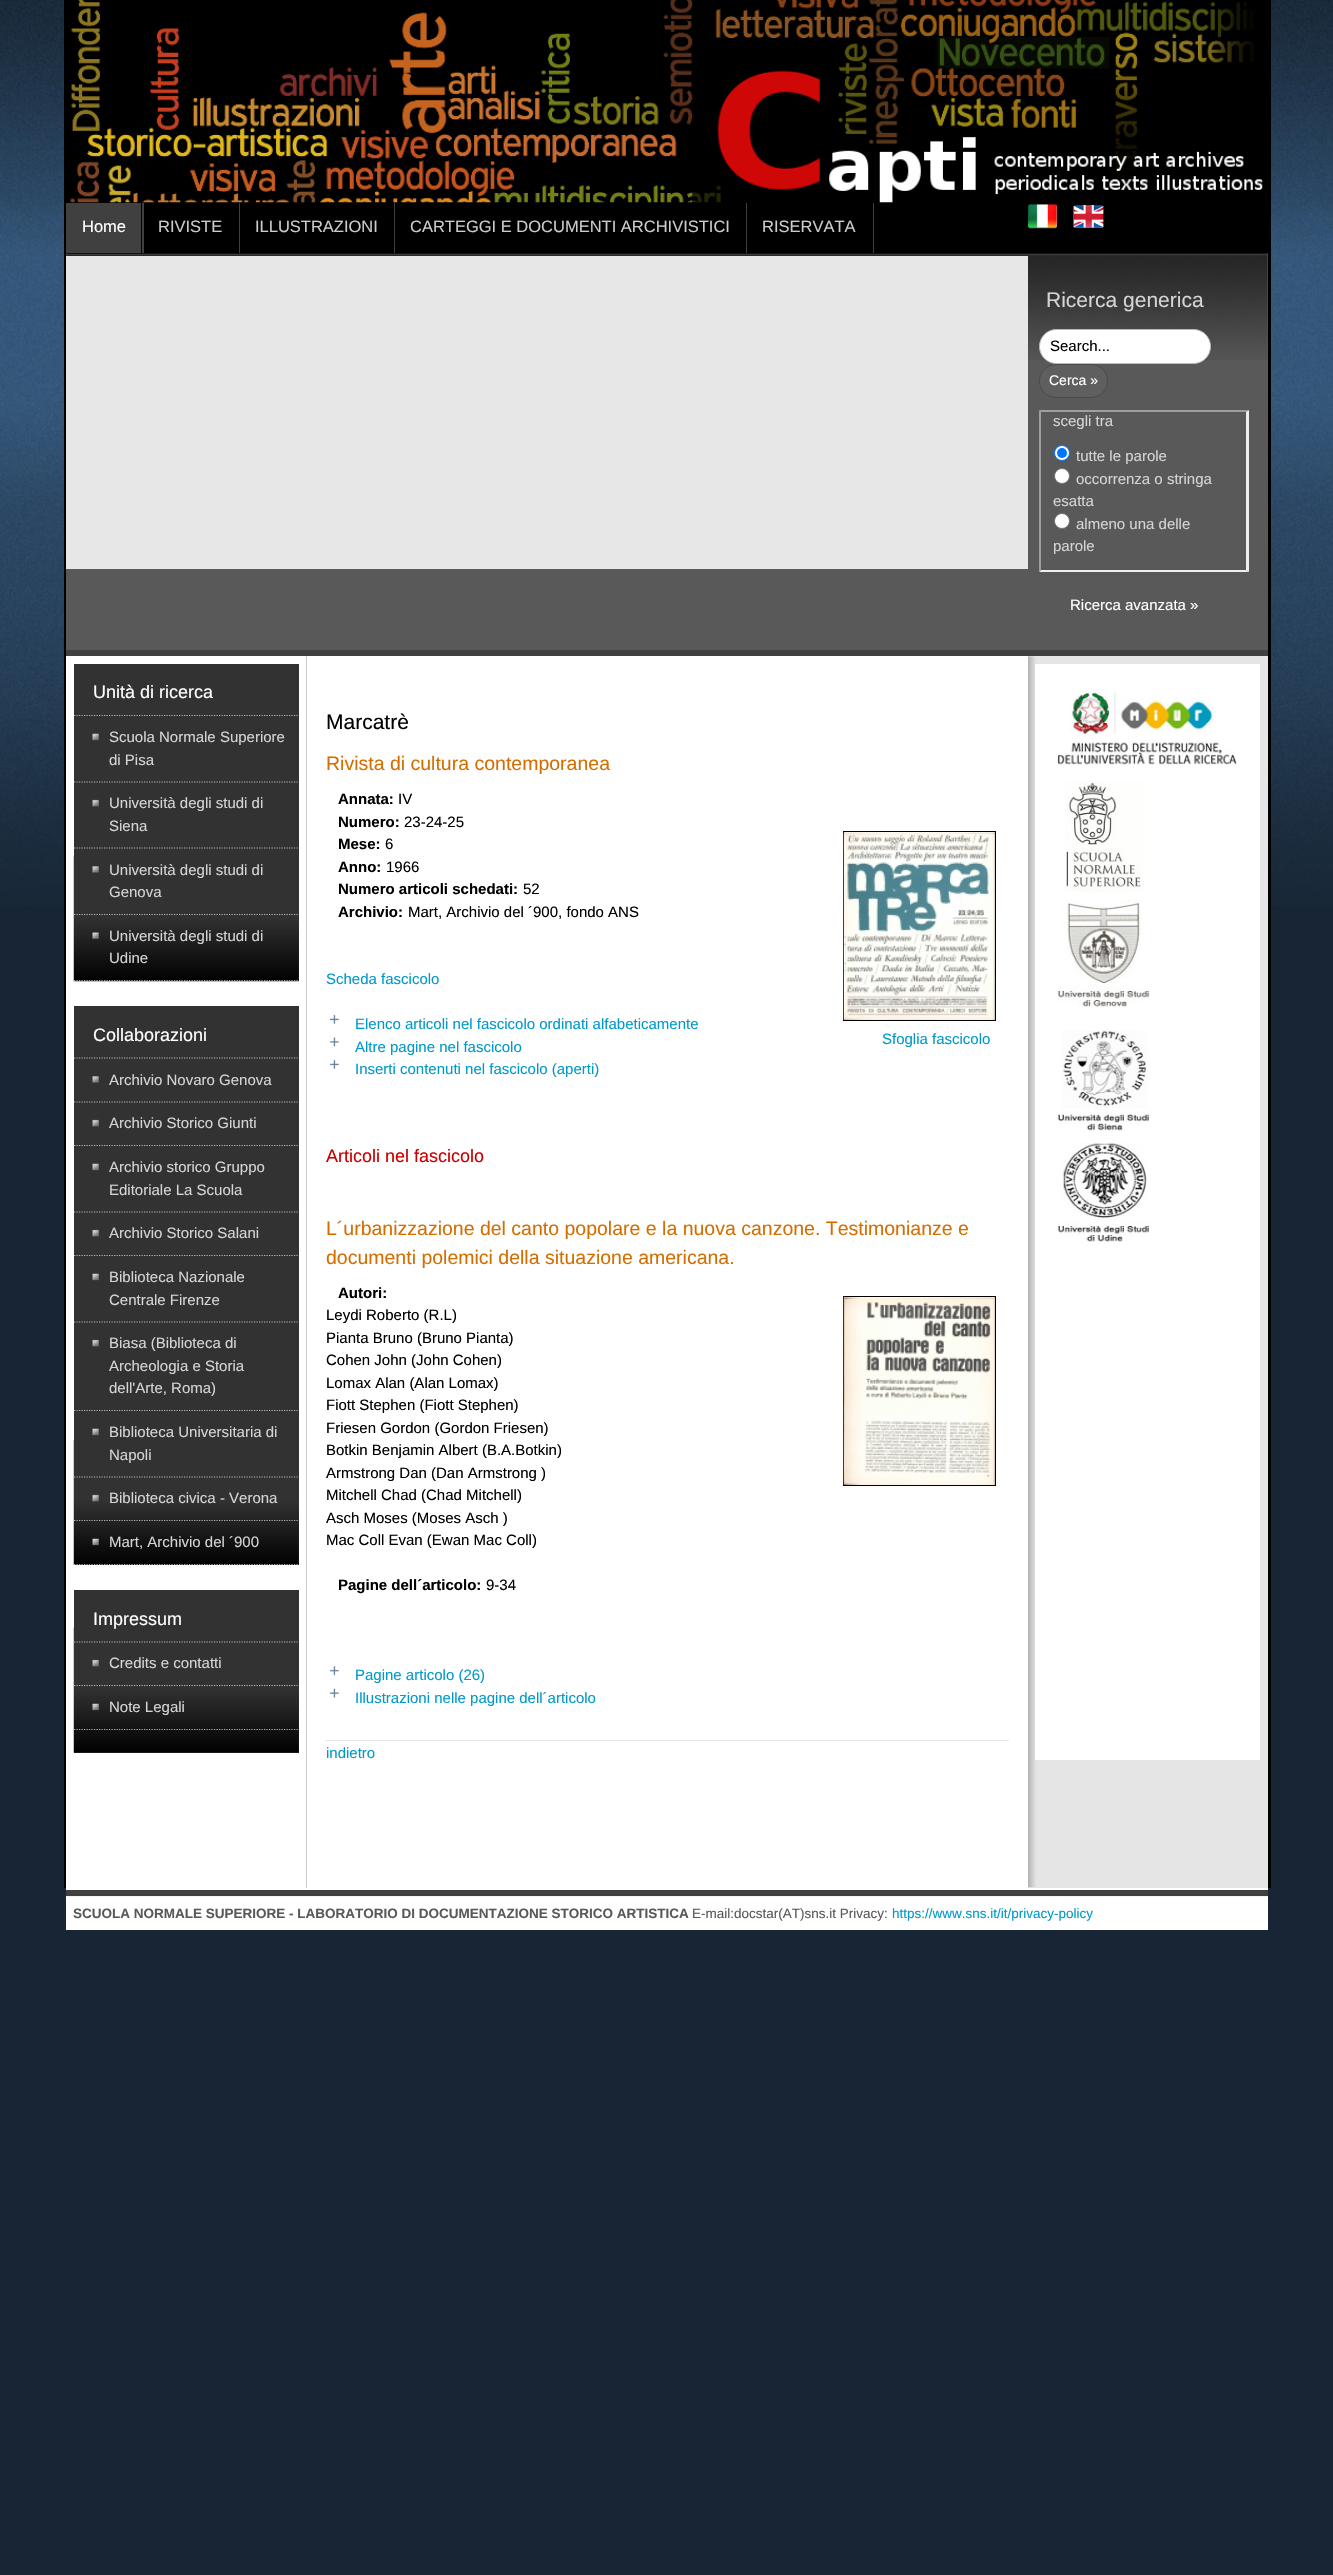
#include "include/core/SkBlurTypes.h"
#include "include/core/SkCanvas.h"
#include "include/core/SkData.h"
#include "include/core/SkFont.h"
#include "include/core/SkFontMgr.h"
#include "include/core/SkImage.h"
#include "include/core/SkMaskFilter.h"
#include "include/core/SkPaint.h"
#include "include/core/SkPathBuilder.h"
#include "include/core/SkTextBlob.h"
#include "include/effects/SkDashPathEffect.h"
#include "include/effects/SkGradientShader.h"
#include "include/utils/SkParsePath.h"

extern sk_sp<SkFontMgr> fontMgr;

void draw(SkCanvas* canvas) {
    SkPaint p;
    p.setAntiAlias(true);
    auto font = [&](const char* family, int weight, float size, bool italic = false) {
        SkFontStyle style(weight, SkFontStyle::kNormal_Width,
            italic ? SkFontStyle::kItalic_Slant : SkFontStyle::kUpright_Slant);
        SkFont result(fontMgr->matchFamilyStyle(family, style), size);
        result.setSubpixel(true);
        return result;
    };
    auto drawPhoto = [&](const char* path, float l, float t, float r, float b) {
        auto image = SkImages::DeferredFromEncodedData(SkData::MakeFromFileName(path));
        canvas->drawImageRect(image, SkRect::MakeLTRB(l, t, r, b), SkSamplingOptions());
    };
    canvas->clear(0xFF172534);
    drawPhoto("media/1.png", 0, 0, 1333, 906);
    {
        const struct { float l, t, r, b; SkColor color; } items[] = {
            {1268, 0, 1271, 1888, 0xFF000000},
            {64, 0, 66, 1888, 0xFF000000},
            {66, 0, 1268, 203, 0xFF000000},
        };
        for (auto [l, t, r, b, color] : items) {
            p.setColor(color);
            canvas->drawRect(SkRect::MakeLTRB(l, t, r, b), p);
        }
    }
    drawPhoto("media/2.png", 70, 0, 1263, 203);
    {
        const struct { float l, t, r, b; SkColor color; } items[] = {
            {144, 203, 1268, 253, 0xFF000000},
            {70, 202, 893, 203, 0x80000000},
            {66, 203, 144, 253, 0xFF404040},
            {141, 203, 142, 253, 0xFF000000},
        };
        for (auto [l, t, r, b, color] : items) {
            p.setColor(color);
            canvas->drawRect(SkRect::MakeLTRB(l, t, r, b), p);
        }
    }
    auto font1 = font("Liberation Sans", 400, 16.5f);
    p.setColor(0xFFFFFFFF);
    canvas->drawString("Home", 82, 232, font1, p);
    p.setColor(0xFF404040);
    canvas->drawRect(SkRect::MakeLTRB(239, 203, 240, 253), p);
    p.setColor(0xFFCCCCCC);
    canvas->drawString("RIVISTE", 158, 232, font1, p);
    p.setColor(0xFF404040);
    canvas->drawRect(SkRect::MakeLTRB(394, 203, 395, 253), p);
    p.setColor(0xFFCCCCCC);
    canvas->drawString("ILLUSTRAZIONI", 255, 232, font1, p);
    p.setColor(0xFF404040);
    canvas->drawRect(SkRect::MakeLTRB(746, 203, 747, 253), p);
    p.setColor(0xFFCCCCCC);
    canvas->drawString("CARTEGGI E DOCUMENTI ARCHIVISTICI", 410, 232, font1, p);
    p.setColor(0xFF404040);
    canvas->drawRect(SkRect::MakeLTRB(873, 203, 874, 253), p);
    p.setColor(0xFFCCCCCC);
    canvas->drawString("RISERVATA", 762, 232, font1, p);
    p.setColor(0xFF595959);
    canvas->drawRect(SkRect::MakeLTRB(66, 253, 1268, 650), p);
    drawPhoto("media/3.png", 66, 253, 1268, 360);
    p.setColor(0xFF404040);
    canvas->drawRect(SkRect::MakeLTRB(66, 650, 1268, 656), p);
    p.setColor(0xFFE7E7E7);
    canvas->drawRect(SkRect::MakeLTRB(66, 256, 1028, 569), p);
    drawPhoto("media/4.png", 1028, 204, 1057, 229);
    drawPhoto("media/5.png", 1073, 205, 1104, 228);
    auto font2 = font("Liberation Sans", 400, 21);
    p.setColor(0xFFD4D4D4);
    canvas->drawString("Ricerca generica", 1046, 307, font2, p);
    p.setColor(0xFFFFFFFF);
    canvas->drawRoundRect(SkRect::MakeLTRB(1039.5f, 329.5f, 1210.5f, 363.5f), 17, 17, p);
    p.setStyle(SkPaint::kStroke_Style);
    p.setStrokeWidth(1);
    p.setColor(0xFFBCBBBB);
    canvas->drawRoundRect(SkRect::MakeLTRB(1039.5f, 329.5f, 1210.5f, 363.5f), 17, 17, p);
    auto font3 = font("Liberation Sans", 400, 15);
    p.setStyle(SkPaint::kFill_Style);
    p.setColor(0xFF000000);
    canvas->drawString("Search...", 1050, 351, font3, p);
    p.setColor(0xFF5F5F5F);
    canvas->drawRoundRect(SkRect::MakeLTRB(1039.5f, 364.5f, 1107.5f, 397.5f), 16.5f, 16.5f, p);
    p.setStyle(SkPaint::kStroke_Style);
    p.setColor(0xFF494949);
    canvas->drawRoundRect(SkRect::MakeLTRB(1039.5f, 364.5f, 1107.5f, 397.5f), 16.5f, 16.5f, p);
    auto font4 = font("Liberation Sans", 400, 14);
    p.setStyle(SkPaint::kFill_Style);
    p.setColor(0xFFFFFFFF);
    canvas->drawString("Cerca »", 1049, 385, font4, p);
    p.setColor(0xFF9F9F9F);
    canvas->drawPath(SkPathBuilder().moveTo(1039, 410).lineTo(1249, 410).lineTo(1246, 412).lineTo(1041, 412).close().detach(), p);
    p.setColor(0xFFEFEFEF);
    canvas->drawPath(SkPathBuilder().moveTo(1249, 410).lineTo(1249, 572).lineTo(1246, 570).lineTo(1246, 412).close().detach(), p);
    canvas->drawPath(SkPathBuilder().moveTo(1249, 572).lineTo(1039, 572).lineTo(1041, 570).lineTo(1246, 570).close().detach(), p);
    p.setColor(0xFF9F9F9F);
    canvas->drawPath(SkPathBuilder().moveTo(1039, 572).lineTo(1039, 410).lineTo(1041, 412).lineTo(1041, 570).close().detach(), p);
    p.setColor(0xFFD4D4D4);
    canvas->drawString("scegli tra", 1053, 426, font3, p);
    p.setColor(0xFFFFFFFF);
    canvas->drawCircle(1062, 453, 7.5f, p);
    p.setStyle(SkPaint::kStroke_Style);
    p.setColor(0xFF0075FF);
    canvas->drawCircle(1062, 453, 7.5f, p);
    p.setStyle(SkPaint::kFill_Style);
    canvas->drawCircle(1062, 453, 5, p);
    p.setColor(0xFFD4D4D4);
    canvas->drawString("tutte le parole", 1076, 461, font3, p);
    p.setColor(0xFFFFFFFF);
    canvas->drawCircle(1062, 476, 7.5f, p);
    p.setStyle(SkPaint::kStroke_Style);
    p.setColor(0xFF767676);
    canvas->drawCircle(1062, 476, 7.5f, p);
    p.setStyle(SkPaint::kFill_Style);
    p.setColor(0xFFD4D4D4);
    canvas->drawString("occorrenza o stringa", 1076, 484, font3, p);
    canvas->drawString("esatta", 1053, 506, font3, p);
    p.setColor(0xFFFFFFFF);
    canvas->drawCircle(1062, 521, 7.5f, p);
    p.setStyle(SkPaint::kStroke_Style);
    p.setColor(0xFF767676);
    canvas->drawCircle(1062, 521, 7.5f, p);
    p.setStyle(SkPaint::kFill_Style);
    p.setColor(0xFFD4D4D4);
    canvas->drawString("almeno una delle", 1076, 529, font3, p);
    canvas->drawString("parole", 1053, 551, font3, p);
    p.setColor(0xFFFFFFFF);
    canvas->drawString("Ricerca avanzata »", 1070, 610, font3, p);
    canvas->drawRect(SkRect::MakeLTRB(66, 656, 1028, 1888), p);
    p.setColor(0xFFE5E5E5);
    canvas->drawRect(SkRect::MakeLTRB(1028, 656, 1268, 1888), p);
    drawPhoto("media/6.png", 1028, 656, 1036, 1888);
    p.setColor(0xFF323232);
    canvas->drawRect(SkRect::MakeLTRB(74, 664, 299, 981), p);
    drawPhoto("media/7.png", 73, 856, 299, 982);
    auto font5 = font("Liberation Sans", 400, 18);
    p.setColor(0xFFFFFFFF);
    canvas->drawString("Unità di ricerca", 93, 698, font5, p);
    p.setStyle(SkPaint::kStroke_Style);
    p.setStrokeWidth(1.2f);
    p.setColor(0xFFB3B3B3);
    p.setPathEffect(SkDashPathEffect::Make({{1.25f, 1.25f}}, 0));
    canvas->drawPath(SkPathBuilder().moveTo(74, 715.5f).lineTo(299, 715.5f).detach(), p);
    p.setPathEffect(nullptr);
    p.setPathEffect(SkDashPathEffect::Make({{1.25f, 1.25f}}, 0));
    canvas->drawPath(SkPathBuilder().moveTo(74, 782).lineTo(299, 782).detach(), p);
    p.setPathEffect(nullptr);
    drawPhoto("media/8.png", 92, 733, 99, 741);
    p.setStyle(SkPaint::kFill_Style);
    p.setColor(0xFFD4D4D4);
    canvas->drawString("Scuola Normale Superiore", 109, 742, font3, p);
    canvas->drawString("di Pisa", 109, 765, font3, p);
    p.setStyle(SkPaint::kStroke_Style);
    p.setColor(0xFFB3B3B3);
    p.setPathEffect(SkDashPathEffect::Make({{1.25f, 1.25f}}, 0));
    canvas->drawPath(SkPathBuilder().moveTo(74, 848).lineTo(299, 848).detach(), p);
    p.setPathEffect(nullptr);
    drawPhoto("media/9.png", 92, 799, 99, 807);
    p.setStyle(SkPaint::kFill_Style);
    p.setColor(0xFFD4D4D4);
    canvas->drawString("Università degli studi di", 109, 808, font3, p);
    canvas->drawString("Siena", 109, 831, font3, p);
    p.setStyle(SkPaint::kStroke_Style);
    p.setColor(0xFFB3B3B3);
    p.setPathEffect(SkDashPathEffect::Make({{1.25f, 1.25f}}, 0));
    canvas->drawPath(SkPathBuilder().moveTo(74, 914.5f).lineTo(299, 914.5f).detach(), p);
    p.setPathEffect(nullptr);
    drawPhoto("media/10.png", 92, 866, 99, 873);
    p.setStyle(SkPaint::kFill_Style);
    p.setColor(0xFFD4D4D4);
    canvas->drawString("Università degli studi di", 109, 875, font3, p);
    canvas->drawString("Genova", 109, 897, font3, p);
    p.setStyle(SkPaint::kStroke_Style);
    p.setColor(0xFFB3B3B3);
    p.setPathEffect(SkDashPathEffect::Make({{1.25f, 1.25f}}, 0));
    canvas->drawPath(SkPathBuilder().moveTo(74, 980.5f).lineTo(299, 980.5f).detach(), p);
    p.setPathEffect(nullptr);
    drawPhoto("media/11.png", 92, 932, 99, 939);
    p.setStyle(SkPaint::kFill_Style);
    p.setColor(0xFFD4D4D4);
    canvas->drawString("Università degli studi di", 109, 941, font3, p);
    canvas->drawString("Udine", 109, 963, font3, p);
    p.setColor(0xFF323232);
    canvas->drawRect(SkRect::MakeLTRB(74, 1006, 299, 1565), p);
    drawPhoto("media/12.png", 73, 1440, 299, 1565);
    p.setColor(0xFFFFFFFF);
    canvas->drawString("Collaborazioni", 93, 1041, font5, p);
    p.setStyle(SkPaint::kStroke_Style);
    p.setColor(0xFFB3B3B3);
    p.setPathEffect(SkDashPathEffect::Make({{1.25f, 1.25f}}, 0));
    canvas->drawPath(SkPathBuilder().moveTo(74, 1058).lineTo(299, 1058).detach(), p);
    p.setPathEffect(nullptr);
    p.setPathEffect(SkDashPathEffect::Make({{1.25f, 1.25f}}, 0));
    canvas->drawPath(SkPathBuilder().moveTo(74, 1102).lineTo(299, 1102).detach(), p);
    p.setPathEffect(nullptr);
    drawPhoto("media/10.png", 92, 1076, 99, 1083);
    p.setStyle(SkPaint::kFill_Style);
    p.setColor(0xFFD4D4D4);
    canvas->drawString("Archivio Novaro Genova", 109, 1085, font3, p);
    p.setStyle(SkPaint::kStroke_Style);
    p.setColor(0xFFB3B3B3);
    p.setPathEffect(SkDashPathEffect::Make({{1.25f, 1.25f}}, 0));
    canvas->drawPath(SkPathBuilder().moveTo(74, 1145.5f).lineTo(299, 1145.5f).detach(), p);
    p.setPathEffect(nullptr);
    drawPhoto("media/9.png", 92, 1119, 99, 1127);
    p.setStyle(SkPaint::kFill_Style);
    p.setColor(0xFFD4D4D4);
    canvas->drawString("Archivio Storico Giunti", 109, 1128, font3, p);
    p.setStyle(SkPaint::kStroke_Style);
    p.setColor(0xFFB3B3B3);
    p.setPathEffect(SkDashPathEffect::Make({{1.25f, 1.25f}}, 0));
    canvas->drawPath(SkPathBuilder().moveTo(74, 1212).lineTo(299, 1212).detach(), p);
    p.setPathEffect(nullptr);
    drawPhoto("media/8.png", 92, 1163, 99, 1171);
    p.setStyle(SkPaint::kFill_Style);
    p.setColor(0xFFD4D4D4);
    canvas->drawString("Archivio storico Gruppo", 109, 1172, font3, p);
    canvas->drawString("Editoriale La Scuola", 109, 1195, font3, p);
    p.setStyle(SkPaint::kStroke_Style);
    p.setColor(0xFFB3B3B3);
    p.setPathEffect(SkDashPathEffect::Make({{1.25f, 1.25f}}, 0));
    canvas->drawPath(SkPathBuilder().moveTo(74, 1255.5f).lineTo(299, 1255.5f).detach(), p);
    p.setPathEffect(nullptr);
    drawPhoto("media/9.png", 92, 1229, 99, 1237);
    p.setStyle(SkPaint::kFill_Style);
    p.setColor(0xFFD4D4D4);
    canvas->drawString("Archivio Storico Salani", 109, 1238, font3, p);
    p.setStyle(SkPaint::kStroke_Style);
    p.setColor(0xFFB3B3B3);
    p.setPathEffect(SkDashPathEffect::Make({{1.25f, 1.25f}}, 0));
    canvas->drawPath(SkPathBuilder().moveTo(74, 1322).lineTo(299, 1322).detach(), p);
    p.setPathEffect(nullptr);
    drawPhoto("media/8.png", 92, 1273, 99, 1281);
    p.setStyle(SkPaint::kFill_Style);
    p.setColor(0xFFD4D4D4);
    canvas->drawString("Biblioteca Nazionale", 109, 1282, font3, p);
    canvas->drawString("Centrale Firenze", 109, 1305, font3, p);
    p.setStyle(SkPaint::kStroke_Style);
    p.setColor(0xFFB3B3B3);
    p.setPathEffect(SkDashPathEffect::Make({{1.25f, 1.25f}}, 0));
    canvas->drawPath(SkPathBuilder().moveTo(74, 1410.5f).lineTo(299, 1410.5f).detach(), p);
    p.setPathEffect(nullptr);
    drawPhoto("media/9.png", 92, 1339, 99, 1347);
    p.setStyle(SkPaint::kFill_Style);
    p.setColor(0xFFD4D4D4);
    {
        const struct { const char* s; float x, y; } items[] = {
            {"Biasa (Biblioteca di", 109, 1348},
            {"Archeologia e Storia", 109, 1371},
            {"dell'Arte, Roma)", 109, 1393},
        };
        for (auto [s, x, y] : items) {
            canvas->drawString(s, x, y, font3, p);
        }
    }
    p.setStyle(SkPaint::kStroke_Style);
    p.setColor(0xFFB3B3B3);
    p.setPathEffect(SkDashPathEffect::Make({{1.25f, 1.25f}}, 0));
    canvas->drawPath(SkPathBuilder().moveTo(74, 1477).lineTo(299, 1477).detach(), p);
    p.setPathEffect(nullptr);
    drawPhoto("media/8.png", 92, 1428, 99, 1436);
    p.setStyle(SkPaint::kFill_Style);
    p.setColor(0xFFD4D4D4);
    canvas->drawString("Biblioteca Universitaria di", 109, 1437, font3, p);
    canvas->drawString("Napoli", 109, 1460, font3, p);
    p.setStyle(SkPaint::kStroke_Style);
    p.setColor(0xFFB3B3B3);
    p.setPathEffect(SkDashPathEffect::Make({{1.25f, 1.25f}}, 0));
    canvas->drawPath(SkPathBuilder().moveTo(74, 1520.5f).lineTo(299, 1520.5f).detach(), p);
    p.setPathEffect(nullptr);
    drawPhoto("media/13.png", 92, 1494, 99, 1502);
    p.setStyle(SkPaint::kFill_Style);
    p.setColor(0xFFD4D4D4);
    canvas->drawString("Biblioteca civica - Verona", 109, 1503, font3, p);
    p.setStyle(SkPaint::kStroke_Style);
    p.setColor(0xFFB3B3B3);
    p.setPathEffect(SkDashPathEffect::Make({{1.25f, 1.25f}}, 0));
    canvas->drawPath(SkPathBuilder().moveTo(74, 1564.5f).lineTo(299, 1564.5f).detach(), p);
    p.setPathEffect(nullptr);
    drawPhoto("media/14.png", 92, 1538, 99, 1546);
    p.setStyle(SkPaint::kFill_Style);
    p.setColor(0xFFD4D4D4);
    canvas->drawString("Mart, Archivio del ´900", 109, 1547, font3, p);
    p.setColor(0xFF323232);
    canvas->drawRect(SkRect::MakeLTRB(74, 1590, 299, 1753), p);
    drawPhoto("media/15.png", 73, 1627, 299, 1753);
    p.setColor(0xFFFFFFFF);
    canvas->drawString("Impressum", 93, 1625, font5, p);
    p.setStyle(SkPaint::kStroke_Style);
    p.setColor(0xFFB3B3B3);
    p.setPathEffect(SkDashPathEffect::Make({{1.25f, 1.25f}}, 0));
    canvas->drawPath(SkPathBuilder().moveTo(74, 1642).lineTo(299, 1642).detach(), p);
    p.setPathEffect(nullptr);
    p.setPathEffect(SkDashPathEffect::Make({{1.25f, 1.25f}}, 0));
    canvas->drawPath(SkPathBuilder().moveTo(74, 1685.5f).lineTo(299, 1685.5f).detach(), p);
    p.setPathEffect(nullptr);
    drawPhoto("media/9.png", 92, 1659, 99, 1667);
    p.setStyle(SkPaint::kFill_Style);
    p.setColor(0xFFD4D4D4);
    canvas->drawString("Credits e contatti", 109, 1668, font3, p);
    p.setStyle(SkPaint::kStroke_Style);
    p.setColor(0xFFB3B3B3);
    p.setPathEffect(SkDashPathEffect::Make({{1.25f, 1.25f}}, 0));
    canvas->drawPath(SkPathBuilder().moveTo(74, 1729.5f).lineTo(299, 1729.5f).detach(), p);
    p.setPathEffect(nullptr);
    drawPhoto("media/16.png", 92, 1703, 99, 1711);
    p.setStyle(SkPaint::kFill_Style);
    p.setColor(0xFFD4D4D4);
    canvas->drawString("Note Legali", 109, 1712, font3, p);
    p.setColor(0xFFCCCCCC);
    canvas->drawRect(SkRect::MakeLTRB(306, 656, 307, 1888), p);
    p.setColor(0xFF000000);
    canvas->drawString("Marcatrè", 326, 729, font2, p);
    auto font6 = font("Liberation Sans", 400, 19.5f);
    p.setColor(0xFFD56E00);
    canvas->drawString("Rivista di cultura contemporanea", 326, 770, font6, p);
    auto font7 = font("Liberation Sans", 700, 15);
    p.setColor(0xFF000000);
    canvas->drawString("Annata:", 338, 804, font7, p);
    canvas->drawString("IV", 398, 804, font3, p);
    canvas->drawString("Numero:", 338, 827, font7, p);
    canvas->drawString("23-24-25", 404, 827, font3, p);
    canvas->drawString("Mese:", 338, 849, font7, p);
    canvas->drawString("6", 385, 849, font3, p);
    canvas->drawString("Anno:", 338, 872, font7, p);
    canvas->drawString("1966", 386, 872, font3, p);
    canvas->drawString("Numero articoli schedati:", 338, 894, font7, p);
    canvas->drawString("52", 523, 894, font3, p);
    canvas->drawString("Archivio:", 338, 917, font7, p);
    canvas->drawString("Mart, Archivio del ´900, fondo ANS", 408, 917, font3, p);
    p.setColor(0xFF009ACA);
    canvas->drawString("Scheda fascicolo", 326, 984, font3, p);
    drawPhoto("media/17.png", 329, 1014, 339, 1024);
    canvas->drawString("Elenco articoli nel fascicolo ordinati alfabeticamente", 355, 1029, font3, p);
    drawPhoto("media/18.png", 329, 1037, 339, 1047);
    canvas->drawString("Altre pagine nel fascicolo", 355, 1052, font3, p);
    p.setStyle(SkPaint::kStroke_Style);
    p.setStrokeWidth(1);
    p.setColor(0xFF000000);
    canvas->drawRect(SkRect::MakeLTRB(843.5f, 831.5f, 995.5f, 1020.5f), p);
    drawPhoto("media/19.png", 843, 832, 995, 1020);
    p.setStyle(SkPaint::kFill_Style);
    p.setColor(0xFF009ACA);
    canvas->drawString("Sfoglia fascicolo", 882, 1044, font3, p);
    drawPhoto("media/17.png", 329, 1059, 339, 1069);
    canvas->drawString("Inserti contenuti nel fascicolo (aperti)", 355, 1074, font3, p);
    p.setColor(0xFFCC0000);
    canvas->drawString("Articoli nel fascicolo", 326, 1162, font5, p);
    p.setColor(0xFFD56E00);
    canvas->drawString("L´urbanizzazione del canto popolare e la nuova canzone. Testimonianze e", 326, 1235, font6, p);
    canvas->drawString("documenti polemici della situazione americana.", 326, 1264, font6, p);
    p.setColor(0xFF000000);
    canvas->drawString("Autori:", 338, 1298, font7, p);
    canvas->drawString("Leydi Roberto (R.L)", 326, 1320, font3, p);
    p.setStyle(SkPaint::kStroke_Style);
    canvas->drawRect(SkRect::MakeLTRB(843.5f, 1296.5f, 995.5f, 1485.5f), p);
    drawPhoto("media/20.png", 843, 1297, 995, 1485);
    p.setStyle(SkPaint::kFill_Style);
    {
        const struct { const char* s; float x, y; } items[] = {
            {"Pianta Bruno (Bruno Pianta)", 326, 1343},
            {"Cohen John (John Cohen)", 326, 1365},
            {"Lomax Alan (Alan Lomax)", 326, 1388},
            {"Fiott Stephen (Fiott Stephen)", 326, 1410},
            {"Friesen Gordon (Gordon Friesen)", 326, 1433},
            {"Botkin Benjamin Albert (B.A.Botkin)", 326, 1455},
            {"Armstrong Dan (Dan Armstrong )", 326, 1478},
            {"Mitchell Chad (Chad Mitchell)", 326, 1500},
            {"Asch Moses (Moses Asch )", 326, 1523},
            {"Mac Coll Evan (Ewan Mac Coll)", 326, 1545},
        };
        for (auto [s, x, y] : items) {
            canvas->drawString(s, x, y, font3, p);
        }
    }
    canvas->drawString("Pagine dell´articolo:", 338, 1590, font7, p);
    canvas->drawString("9-34", 486, 1590, font3, p);
    drawPhoto("media/21.png", 329, 1666, 339, 1676);
    p.setColor(0xFF009ACA);
    canvas->drawString("Pagine articolo (26)", 355, 1680, font3, p);
    drawPhoto("media/22.png", 329, 1688, 339, 1698);
    canvas->drawString("Illustrazioni nelle pagine dell´articolo", 355, 1703, font3, p);
    p.setColor(0xFFE6E6E8);
    canvas->drawRect(SkRect::MakeLTRB(326, 1740, 1009, 1741), p);
    p.setColor(0xFF009ACA);
    canvas->drawString("indietro", 326, 1758, font3, p);
    p.setColor(0xFFFFFFFF);
    canvas->drawRect(SkRect::MakeLTRB(1035, 664, 1260, 1760), p);
    drawPhoto("media/23.png", 1057, 689, 1237, 765);
    drawPhoto("media/24.png", 1065, 781, 1145, 892);
    drawPhoto("media/25.png", 1057, 899, 1151, 1007);
    drawPhoto("media/26.png", 1057, 1030, 1149, 1131);
    drawPhoto("media/27.png", 1057, 1142, 1149, 1242);
    {
        const struct { float l, t, r, b; SkColor color; } items[] = {
            {66, 1896, 1268, 1897, 0xFFF1F2F2},
            {66, 1888, 1268, 1890, 0xFFFFFFFF},
            {66, 1890, 1268, 1896, 0xFF404040},
            {66, 1897, 1268, 1930, 0xFFFFFFFF},
        };
        for (auto [l, t, r, b, color] : items) {
            p.setColor(color);
            canvas->drawRect(SkRect::MakeLTRB(l, t, r, b), p);
        }
    }
    auto font8 = font("Liberation Sans", 700, 13.5f);
    p.setColor(0xFF595959);
    canvas->drawString("SCUOLA NORMALE SUPERIORE - LABORATORIO DI DOCUMENTAZIONE STORICO ARTISTICA", 73, 1918, font8, p);
    auto font9 = font("Liberation Sans", 400, 13.5f);
    canvas->drawString("E-mail:docstar(AT)sns.it Privacy:", 692, 1918, font9, p);
    p.setColor(0xFF009ACA);
    canvas->drawString("https://www.sns.it/it/privacy-policy", 892, 1918, font9, p);
}
